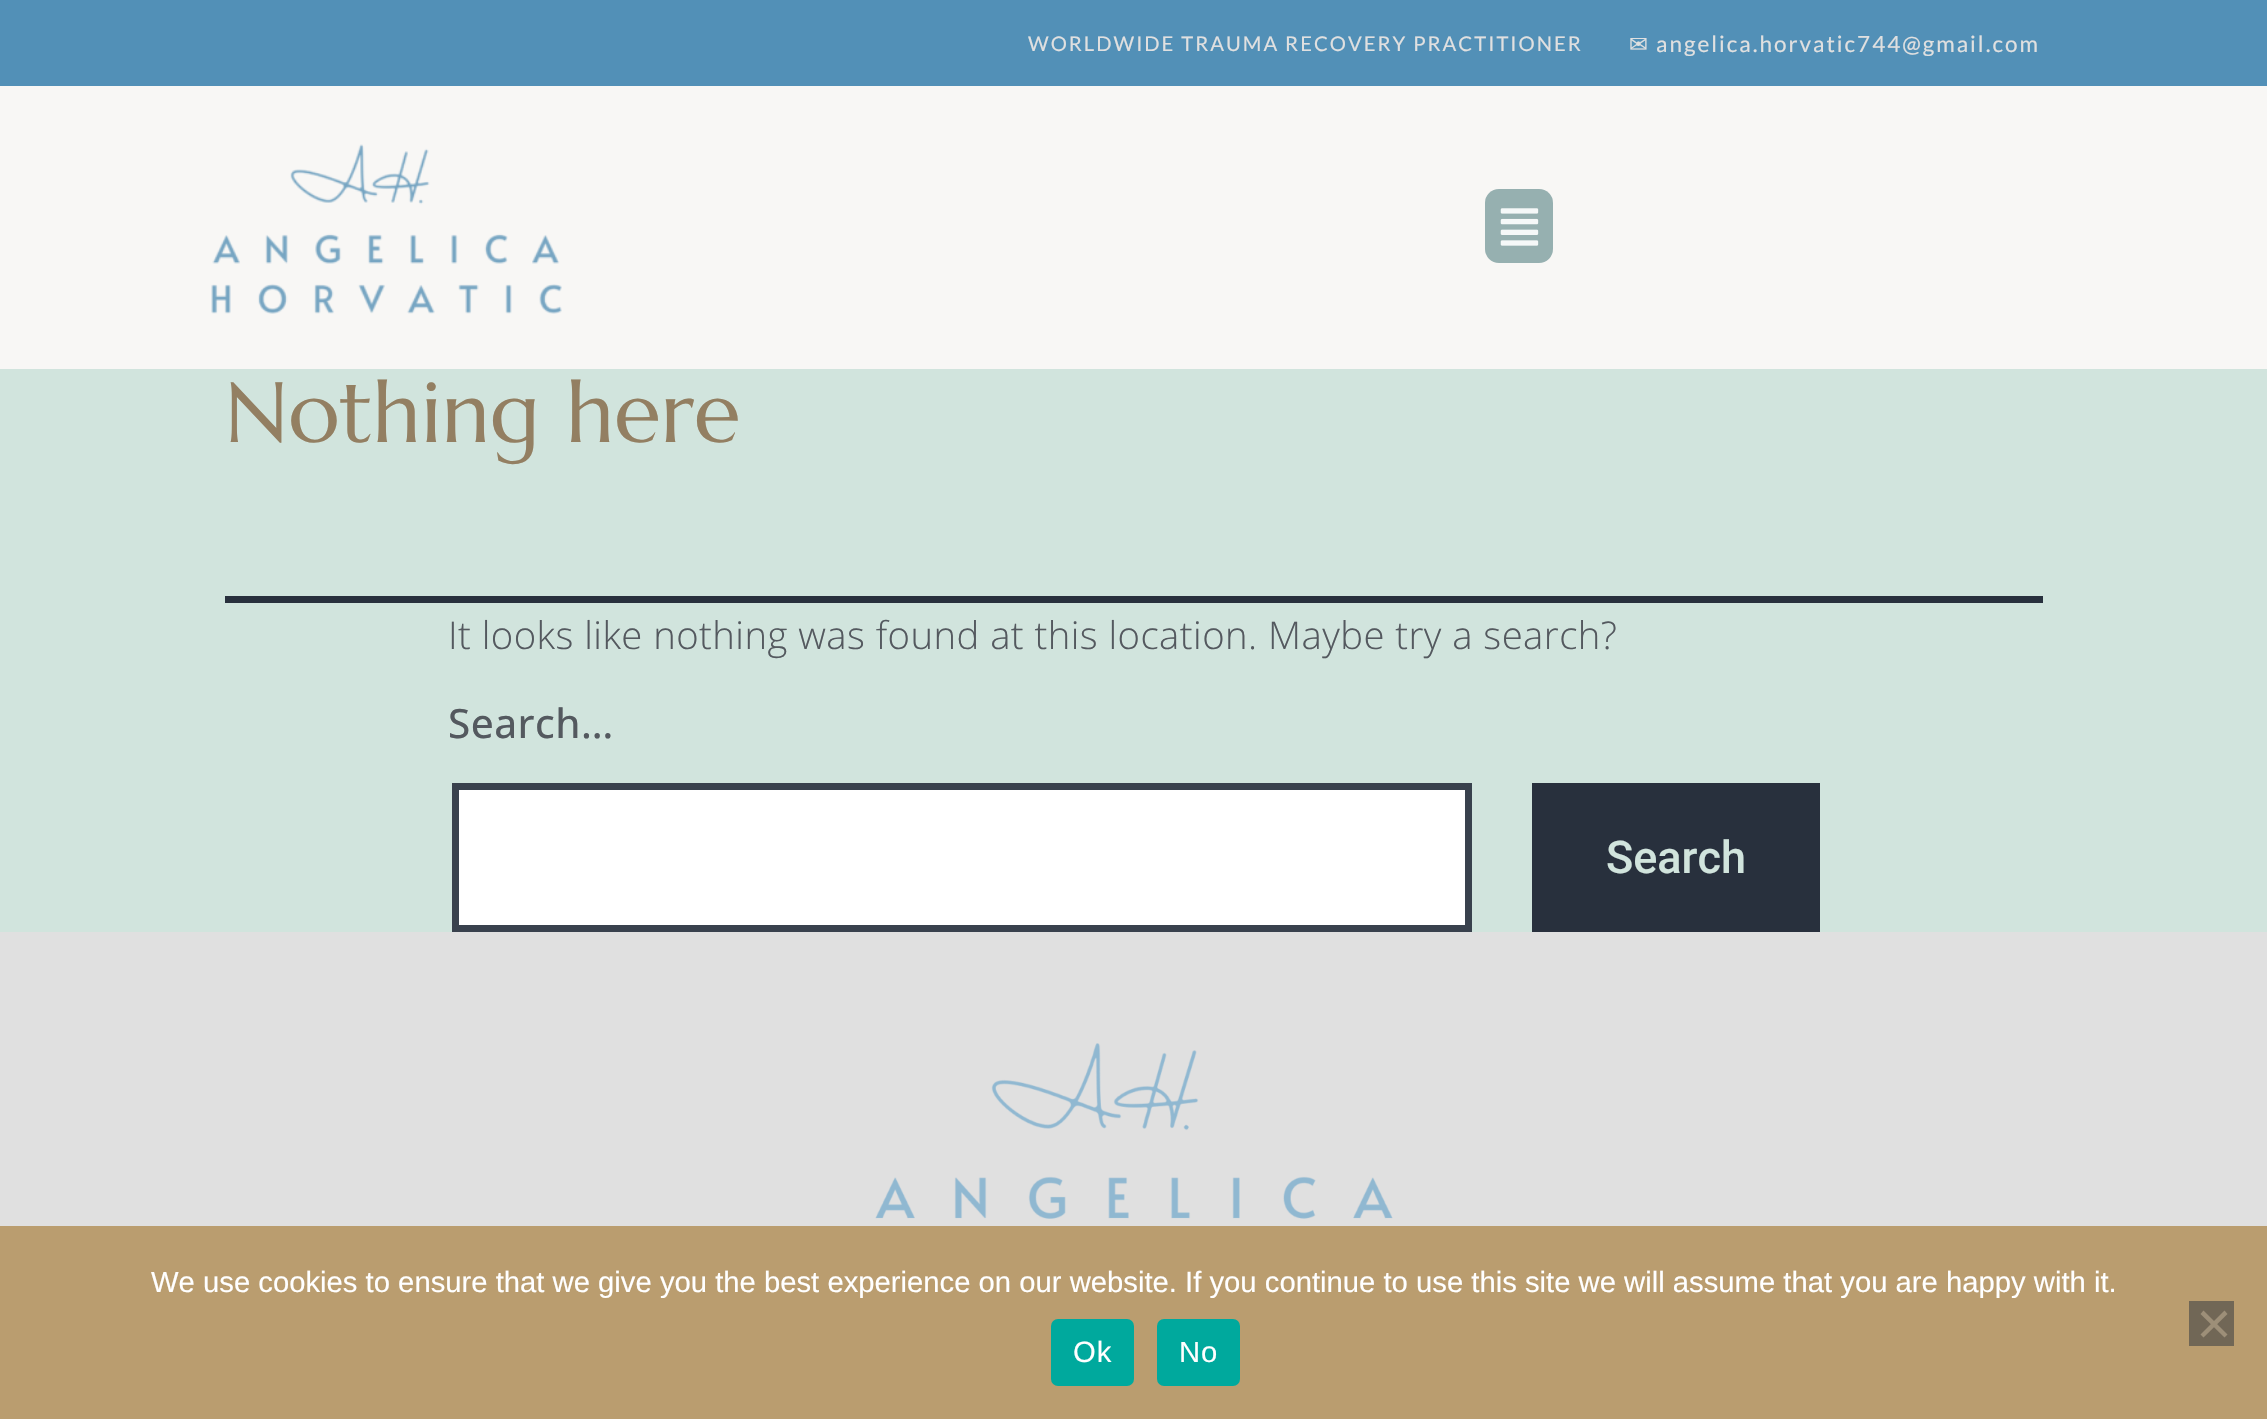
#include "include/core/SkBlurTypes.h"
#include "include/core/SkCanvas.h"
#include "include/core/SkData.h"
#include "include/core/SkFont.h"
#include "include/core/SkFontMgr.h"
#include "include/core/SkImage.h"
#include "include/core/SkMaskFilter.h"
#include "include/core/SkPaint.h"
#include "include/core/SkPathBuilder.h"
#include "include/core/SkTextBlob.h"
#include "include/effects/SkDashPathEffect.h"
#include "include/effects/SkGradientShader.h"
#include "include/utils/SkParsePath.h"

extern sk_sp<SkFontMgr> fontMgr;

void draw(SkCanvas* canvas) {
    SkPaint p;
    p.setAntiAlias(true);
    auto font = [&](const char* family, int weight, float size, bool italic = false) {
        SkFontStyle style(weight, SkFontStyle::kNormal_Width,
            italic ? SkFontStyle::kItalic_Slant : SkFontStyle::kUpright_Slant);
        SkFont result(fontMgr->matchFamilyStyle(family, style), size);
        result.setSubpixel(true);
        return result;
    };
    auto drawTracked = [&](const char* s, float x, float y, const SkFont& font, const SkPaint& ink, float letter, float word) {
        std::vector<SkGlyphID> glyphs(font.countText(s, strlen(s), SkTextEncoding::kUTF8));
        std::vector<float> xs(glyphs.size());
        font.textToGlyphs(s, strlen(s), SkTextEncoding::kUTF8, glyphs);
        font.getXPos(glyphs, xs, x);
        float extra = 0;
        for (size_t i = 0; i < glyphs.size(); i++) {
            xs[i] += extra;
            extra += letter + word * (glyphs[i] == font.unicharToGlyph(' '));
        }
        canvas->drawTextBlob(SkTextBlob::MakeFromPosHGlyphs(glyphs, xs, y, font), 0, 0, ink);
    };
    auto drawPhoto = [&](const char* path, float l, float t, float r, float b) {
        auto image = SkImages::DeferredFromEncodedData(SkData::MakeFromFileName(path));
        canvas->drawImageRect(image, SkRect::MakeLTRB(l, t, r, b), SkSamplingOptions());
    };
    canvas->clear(0xFFD1E4DD);
    p.setColor(0xFF5290B7);
    canvas->drawRect(SkRect::MakeLTRB(0, 0, 2267, 86), p);
    auto font1 = font("Lato", 400, 20.25f);
    p.setColor(0xFFE0E0E0);
    drawTracked("WORLDWIDE TRAUMA RECOVERY PRACTITIONER", 1028, 51, font1, p, 2, 0);
    auto font2 = font("DejaVu Sans", 400, 22.5f);
    drawTracked("✉", 1629, 52, font2, p, 2, 0);
    auto font3 = font("Lato", 400, 22.5f);
    drawTracked("angelica.horvatic744@gmail.com", 1656, 52, font3, p, 2, 0);
    p.setColor(0xFFF8F7F5);
    canvas->drawRect(SkRect::MakeLTRB(0, 86, 2267, 369), p);
    drawPhoto("media/1.png", 211, 144, 562, 314);
    p.setColor(0xFF96B0B0);
    canvas->drawRoundRect(SkRect::MakeLTRB(1485, 189, 1553, 263), 14, 14, p);
    drawPhoto("media/2.png", 1500, 208, 1539, 246);
    p.setColor(0xFF28303D);
    canvas->drawRect(SkRect::MakeLTRB(225, 596, 2043, 603), p);
    auto font4 = font("Marcellus", 400, 85.5f);
    p.setColor(0xFF937F62);
    canvas->drawString("Nothing here", 225, 442, font4, p);
    auto font5 = font("Open Sans", 300, 38.25f);
    p.setColor(0xFF54595F);
    drawTracked("It looks like nothing was found at this location. Maybe try a search?", 448, 649, font5, p, 0.45f, 0);
    auto font6 = font("Open Sans", 500, 40.5f);
    drawTracked("Search…", 448, 738, font6, p, 0.45f, 0);
    p.setColor(0xFFFFFFFF);
    canvas->drawRect(SkRect::MakeLTRB(455.5f, 786.5f, 1468.5f, 928.5f), p);
    p.setStyle(SkPaint::kStroke_Style);
    p.setStrokeWidth(7);
    p.setColor(0xFF39414D);
    canvas->drawRect(SkRect::MakeLTRB(455.5f, 786.5f, 1468.5f, 928.5f), p);
    p.setStyle(SkPaint::kFill_Style);
    p.setColor(0xFF28303D);
    canvas->drawRect(SkRect::MakeLTRB(1532, 783, 1820, 932), p);
    auto font7 = font("Roboto", 500, 45);
    p.setColor(0xFFD1E4DD);
    canvas->drawString("Search", 1606, 873, font7, p);
    p.setColor(0xFFE0E0E0);
    canvas->drawRect(SkRect::MakeLTRB(0, 932, 2267, 1226), p);
    drawPhoto("media/3.png", 875, 1043, 1393, 1219);
    p.setColor(0xFFBA9D6F);
    canvas->drawRect(SkRect::MakeLTRB(0, 1226, 2267, 1419), p);
    auto font8 = font("Liberation Sans", 400, 29.25f);
    p.setColor(0xFFFFFFFF);
    canvas->drawString("We use cookies to ensure that we give you the best experience on our website. If you continue to use this site we will assume that you are happy with it.", 151, 1292, font8, p);
    p.setColor(0xFF716756);
    canvas->drawRect(SkRect::MakeLTRB(2189, 1301, 2234, 1346), p);
    p.setColor(0xFF9D8F78);
    canvas->drawPath(SkPathBuilder().moveTo(2224.5f, 1310.5f).lineTo(2227.5f, 1314).lineTo(2203.5f, 1337.5f).lineTo(2200.5f, 1334.5f).close().detach(), p);
    canvas->drawPath(SkPathBuilder().moveTo(2200.5f, 1314).lineTo(2203.5f, 1310.5f).lineTo(2227.5f, 1334.5f).lineTo(2224.5f, 1337.5f).close().detach(), p);
    p.setColor(0xFF00A99D);
    canvas->drawRoundRect(SkRect::MakeLTRB(1051, 1319, 1134, 1386), 7, 7, p);
    p.setColor(0xFFFFFFFF);
    drawTracked("Ok", 1073, 1362, font8, p, 1, 0);
    p.setColor(0xFF00A99D);
    canvas->drawRoundRect(SkRect::MakeLTRB(1157, 1319, 1240, 1386), 7, 7, p);
    p.setColor(0xFFFFFFFF);
    drawTracked("No", 1179, 1362, font8, p, 1, 0);
}
